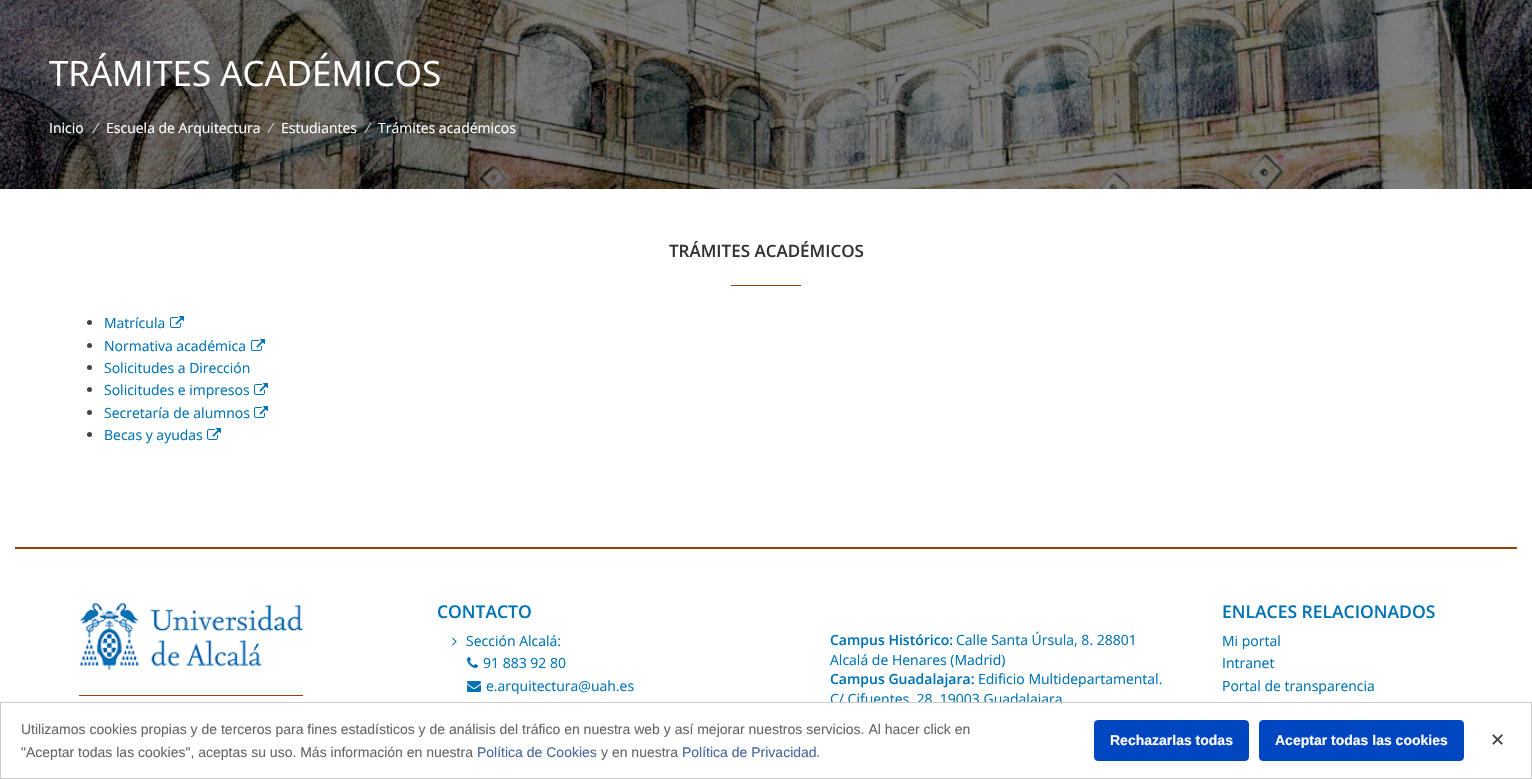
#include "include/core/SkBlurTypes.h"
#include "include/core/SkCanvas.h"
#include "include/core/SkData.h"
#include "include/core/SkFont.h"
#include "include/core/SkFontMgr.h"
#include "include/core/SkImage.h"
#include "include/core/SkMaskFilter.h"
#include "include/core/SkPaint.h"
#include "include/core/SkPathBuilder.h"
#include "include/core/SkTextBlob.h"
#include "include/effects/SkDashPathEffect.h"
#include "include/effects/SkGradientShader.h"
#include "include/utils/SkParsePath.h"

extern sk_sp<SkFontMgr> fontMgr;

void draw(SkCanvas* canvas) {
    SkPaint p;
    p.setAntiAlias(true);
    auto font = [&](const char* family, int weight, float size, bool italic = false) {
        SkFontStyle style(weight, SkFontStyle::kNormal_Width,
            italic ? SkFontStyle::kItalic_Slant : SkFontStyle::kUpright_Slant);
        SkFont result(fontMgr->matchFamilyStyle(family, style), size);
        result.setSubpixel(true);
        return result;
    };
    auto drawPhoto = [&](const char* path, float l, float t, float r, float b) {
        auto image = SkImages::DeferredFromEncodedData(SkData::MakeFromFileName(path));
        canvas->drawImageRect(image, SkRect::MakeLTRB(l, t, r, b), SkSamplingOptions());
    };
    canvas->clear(0xFFFFFFFF);
    drawPhoto("media/1.png", 0, 0, 1532, 189);
    auto font1 = font("Open Sans", 400, 35);
    p.setColor(0xFFFFFFFF);
    canvas->drawString("TRÁMITES ACADÉMICOS", 49, 86, font1, p);
    auto font2 = font("Open Sans", 400, 14);
    canvas->drawString("Inicio", 49, 133, font2, p);
    auto font3 = font("Open Sans", 400, 14, true);
    p.setColor(0xFFCCCCCC);
    canvas->drawString("/", 92, 133, font3, p);
    p.setColor(0xFFFFFFFF);
    canvas->drawString("Escuela de Arquitectura", 106, 133, font2, p);
    p.setColor(0xFFCCCCCC);
    canvas->drawString("/", 267, 133, font3, p);
    p.setColor(0xFFFFFFFF);
    canvas->drawString("Estudiantes", 281, 133, font2, p);
    p.setColor(0xFFCCCCCC);
    canvas->drawString("/", 364, 133, font3, p);
    p.setColor(0xFFFFFFFF);
    canvas->drawString("Trámites académicos", 378, 133, font2, p);
    auto font4 = font("Open Sans", 600, 17);
    p.setColor(0xFF333333);
    canvas->drawString("TRÁMITES ACADÉMICOS", 669, 257, font4, p);
    p.setColor(0xFF91420E);
    canvas->drawRect(SkRect::MakeLTRB(731, 285, 801, 286), p);
    p.setColor(0xFF444444);
    canvas->drawCircle(89.5f, 322.5f, 2.5f, p);
    p.setColor(0xFF0073B4);
    canvas->drawString("Matrícula", 104, 328, font2, p);
    drawPhoto("media/2.png", 170, 316, 184, 328);
    p.setColor(0xFF444444);
    canvas->drawCircle(89.5f, 345.5f, 2.5f, p);
    p.setColor(0xFF0073B4);
    canvas->drawString("Normativa académica", 104, 351, font2, p);
    drawPhoto("media/2.png", 251, 339, 265, 351);
    p.setColor(0xFF444444);
    canvas->drawCircle(89.5f, 367.5f, 2.5f, p);
    p.setColor(0xFF0073B4);
    canvas->drawString("Solicitudes a Dirección", 104, 373, font2, p);
    p.setColor(0xFF444444);
    canvas->drawCircle(89.5f, 389.5f, 2.5f, p);
    p.setColor(0xFF0073B4);
    canvas->drawString("Solicitudes e impresos", 104, 395, font2, p);
    drawPhoto("media/2.png", 254, 383, 268, 395);
    p.setColor(0xFF444444);
    canvas->drawCircle(89.5f, 412.5f, 2.5f, p);
    p.setColor(0xFF0073B4);
    canvas->drawString("Secretaría de alumnos", 104, 418, font2, p);
    drawPhoto("media/2.png", 254, 406, 268, 418);
    p.setColor(0xFF444444);
    canvas->drawCircle(89.5f, 434.5f, 2.5f, p);
    p.setColor(0xFF0073B4);
    canvas->drawString("Becas y ayudas", 104, 440, font2, p);
    drawPhoto("media/2.png", 207, 428, 221, 440);
    p.setColor(0xFF91420E);
    canvas->drawRect(SkRect::MakeLTRB(15, 547, 1517, 549), p);
    drawPhoto("media/3.png", 80, 602, 303, 670);
    canvas->drawRect(SkRect::MakeLTRB(79, 695, 303, 696), p);
    auto font5 = font("Open Sans", 600, 17.5f);
    p.setColor(0xFF0073B4);
    canvas->drawString("CONTACTO", 437, 618, font5, p);
    drawPhoto("media/4.png", 452, 637, 457, 646);
    canvas->drawString("Sección Alcalá:", 466, 646, font2, p);
    drawPhoto("media/5.png", 467, 657, 478, 668);
    canvas->drawString("91 883 92 80", 483, 668, font2, p);
    drawPhoto("media/6.png", 467, 681, 481, 692);
    canvas->drawString("e.arquitectura@uah.es", 486, 691, font2, p);
    auto font6 = font("Open Sans", 600, 14);
    canvas->drawString("Campus Histórico:", 830, 645, font6, p);
    canvas->drawString("Calle Santa Úrsula, 8. 28801", 956, 645, font2, p);
    canvas->drawString("Alcalá de Henares (Madrid)", 830, 665, font2, p);
    canvas->drawString("Campus Guadalajara:", 830, 684, font6, p);
    canvas->drawString("Edificio Multidepartamental.", 978, 684, font2, p);
    canvas->drawString("C/ Cifuentes, 28. 19003 Guadalajara", 830, 704, font2, p);
    canvas->drawString("ENLACES RELACIONADOS", 1222, 618, font5, p);
    {
        const struct { const char* s; float x, y; } items[] = {
            {"Mi portal", 1222, 646},
            {"Intranet", 1222, 668},
            {"Portal de transparencia", 1222, 691},
        };
        for (auto [s, x, y] : items) {
            canvas->drawString(s, x, y, font2, p);
        }
    }
    p.setColor(0xFFFFFFFF);
    canvas->drawRect(SkRect::MakeLTRB(832, 703, 1061, 708), p);
    p.setStyle(SkPaint::kStroke_Style);
    p.setStrokeWidth(1);
    p.setColor(0xFFCCCCCC);
    canvas->drawRect(SkRect::MakeLTRB(0.5f, 702.5f, 1531.5f, 778.5f), p);
    auto font7 = font("Liberation Sans", 400, 14);
    p.setStyle(SkPaint::kFill_Style);
    p.setColor(0xFF666666);
    canvas->drawString("Utilizamos cookies propias y de terceros para fines estadísticos y de análisis del tráfico en nuestra web y así mejorar nuestros servicios. Al hacer click en", 21, 734, font7, p);
    canvas->drawString("\"Aceptar todas las cookies\", aceptas su uso. Más información en nuestra", 21, 757, font7, p);
    p.setColor(0xFF4765A0);
    canvas->drawString("Política de Cookies", 477, 757, font7, p);
    p.setColor(0xFF666666);
    canvas->drawString("y en nuestra", 601, 757, font7, p);
    p.setColor(0xFF4765A0);
    canvas->drawString("Política de Privacidad", 682, 757, font7, p);
    p.setColor(0xFF666666);
    canvas->drawString(".", 816, 757, font7, p);
    p.setColor(0xFF0046C0);
    canvas->drawRoundRect(SkRect::MakeLTRB(1094.5f, 720.5f, 1248.5f, 760.5f), 3.5f, 3.5f, p);
    p.setStyle(SkPaint::kStroke_Style);
    canvas->drawRoundRect(SkRect::MakeLTRB(1094.5f, 720.5f, 1248.5f, 760.5f), 3.5f, 3.5f, p);
    auto font8 = font("Liberation Sans", 700, 14);
    p.setStyle(SkPaint::kFill_Style);
    p.setColor(0xFFFFFFFF);
    canvas->drawString("Rechazarlas todas", 1110, 745, font8, p);
    p.setColor(0xFF0046C0);
    canvas->drawRoundRect(SkRect::MakeLTRB(1259.5f, 720.5f, 1463.5f, 760.5f), 3.5f, 3.5f, p);
    p.setStyle(SkPaint::kStroke_Style);
    canvas->drawRoundRect(SkRect::MakeLTRB(1259.5f, 720.5f, 1463.5f, 760.5f), 3.5f, 3.5f, p);
    p.setStyle(SkPaint::kFill_Style);
    p.setColor(0xFFFFFFFF);
    canvas->drawString("Aceptar todas las cookies", 1275, 745, font8, p);
    auto font9 = font("DejaVu Sans", 400, 18);
    p.setColor(0xFF444444);
    canvas->drawString("✕", 1490, 746, font9, p);
}
